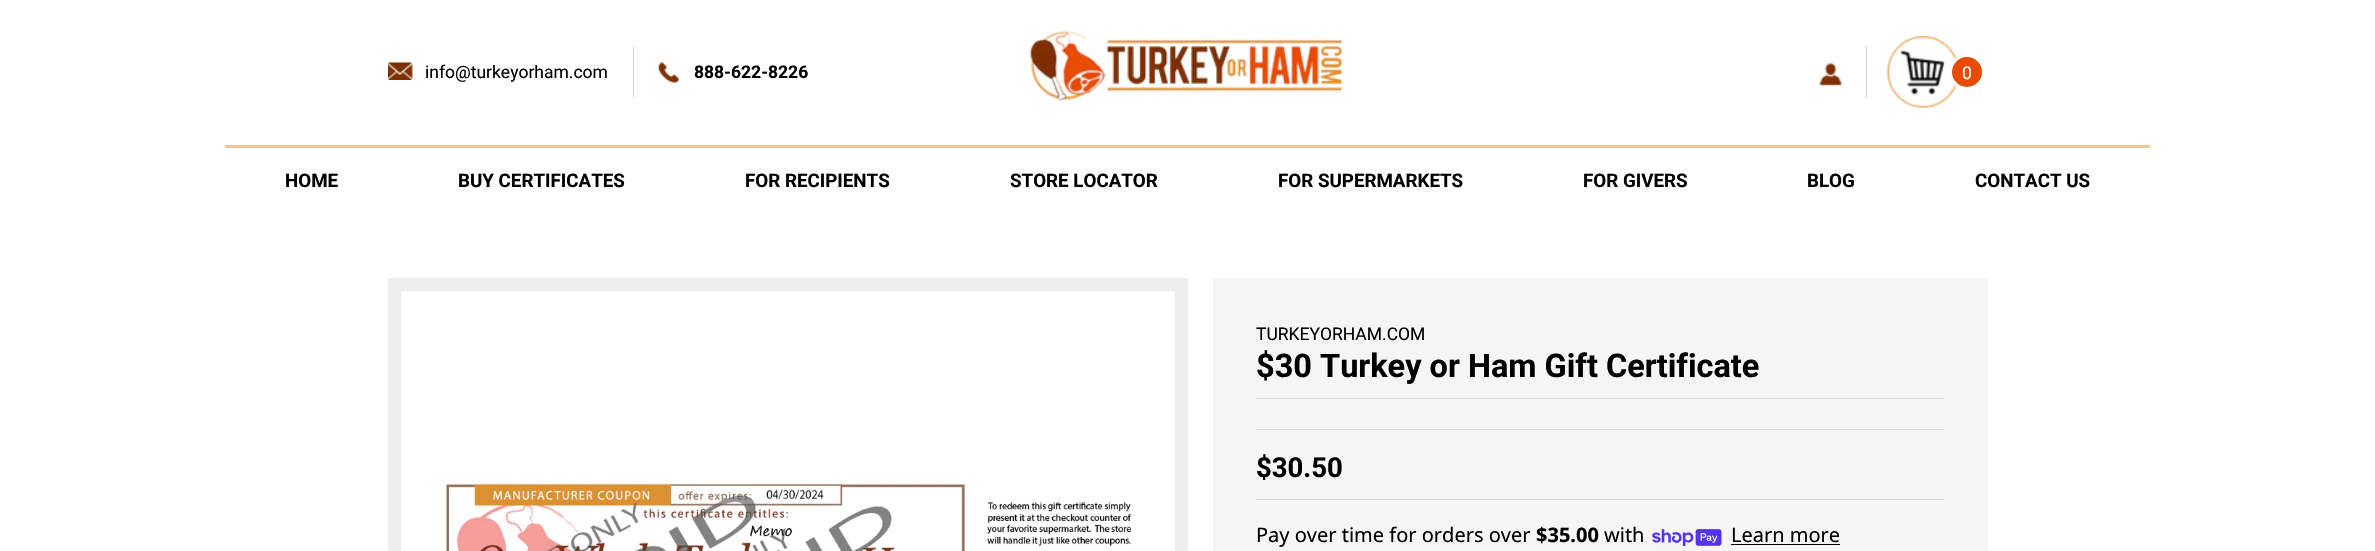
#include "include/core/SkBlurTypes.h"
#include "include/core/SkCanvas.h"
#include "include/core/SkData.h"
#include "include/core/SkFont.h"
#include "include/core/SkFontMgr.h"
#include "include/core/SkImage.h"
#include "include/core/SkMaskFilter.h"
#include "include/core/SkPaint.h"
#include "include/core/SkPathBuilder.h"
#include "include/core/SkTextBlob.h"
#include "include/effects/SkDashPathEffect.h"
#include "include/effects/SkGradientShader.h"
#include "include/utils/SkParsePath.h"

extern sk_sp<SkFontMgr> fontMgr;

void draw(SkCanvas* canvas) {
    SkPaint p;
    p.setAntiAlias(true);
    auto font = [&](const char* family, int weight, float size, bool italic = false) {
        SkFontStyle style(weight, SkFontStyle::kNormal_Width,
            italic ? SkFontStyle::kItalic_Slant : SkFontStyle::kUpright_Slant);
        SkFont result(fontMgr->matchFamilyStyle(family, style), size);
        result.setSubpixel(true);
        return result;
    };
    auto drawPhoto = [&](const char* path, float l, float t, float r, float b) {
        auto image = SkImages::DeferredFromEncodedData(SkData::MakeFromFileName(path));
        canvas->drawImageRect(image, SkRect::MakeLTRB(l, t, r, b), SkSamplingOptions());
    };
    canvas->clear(0xFFFFFFFF);
    p.setColor(0xFFD9D9D9);
    canvas->drawRect(SkRect::MakeLTRB(633, 46, 634, 98), p);
    drawPhoto("media/1.png", 388, 62, 413, 80);
    auto font1 = font("Roboto", 400, 17.5f);
    p.setColor(0xFF000000);
    canvas->drawString("info@turkeyorham.com", 425, 78, font1, p);
    drawPhoto("media/2.png", 658, 62, 679, 83);
    auto font2 = font("Roboto", 700, 17.5f);
    canvas->drawString("888-622-8226", 694, 78, font2, p);
    drawPhoto("media/3.png", 1030, 31, 1343, 101);
    p.setColor(0xFFD0D0D0);
    canvas->drawRect(SkRect::MakeLTRB(1866, 46, 1867, 98), p);
    drawPhoto("media/4.png", 1819, 63, 1842, 86);
    drawPhoto("media/5.png", 1886, 36, 1957, 109);
    p.setColor(0xFFE74C05);
    canvas->drawCircle(1967, 72, 16.5f, p);
    p.setStyle(SkPaint::kStroke_Style);
    p.setStrokeWidth(3);
    p.setColor(0xFFFFFFFF);
    canvas->drawCircle(1967, 72, 16.5f, p);
    p.setStyle(SkPaint::kFill_Style);
    canvas->drawString("0", 1962, 79, font1, p);
    p.setColor(0xFFF1C895);
    canvas->drawRect(SkRect::MakeLTRB(225, 145, 2150, 148), p);
    auto font3 = font("Roboto", 700, 18.75f);
    p.setColor(0xFF000000);
    {
        const struct { const char* s; float x, y; } items[] = {
            {"HOME", 285, 187},
            {"BUY CERTIFICATES", 458, 187},
            {"FOR RECIPIENTS", 745, 187},
            {"STORE LOCATOR", 1010, 187},
            {"FOR SUPERMARKETS", 1278, 187},
            {"FOR GIVERS", 1583, 187},
            {"BLOG", 1807, 187},
            {"CONTACT US", 1975, 187},
        };
        for (auto [s, x, y] : items) {
            canvas->drawString(s, x, y, font3, p);
        }
    }
    p.setStyle(SkPaint::kStroke_Style);
    p.setStrokeWidth(13);
    p.setColor(0xFFEEEEEE);
    canvas->drawRect(SkRect::MakeLTRB(394.5f, 284.5f, 1181.5f, 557.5f), p);
    drawPhoto("media/6.png", 445, 482, 1132, 551);
    p.setStyle(SkPaint::kFill_Style);
    p.setColor(0xFFF5F5F5);
    canvas->drawRect(SkRect::MakeLTRB(1213, 278, 1988, 551), p);
    p.setColor(0xFF000000);
    canvas->drawString("TURKEYORHAM.COM", 1256, 340, font1, p);
    p.setColor(0xFFDCDCDC);
    canvas->drawRect(SkRect::MakeLTRB(1256, 398, 1944, 399), p);
    auto font4 = font("Roboto", 700, 32.5f);
    p.setColor(0xFF000000);
    canvas->drawString("$30 Turkey or Ham Gift Certificate", 1256, 377, font4, p);
    p.setColor(0xFFDCDCDC);
    canvas->drawRect(SkRect::MakeLTRB(1256, 429, 1944, 430), p);
    canvas->drawRect(SkRect::MakeLTRB(1256, 499, 1944, 500), p);
    auto font5 = font("Roboto", 700, 27.5f);
    p.setColor(0xFF000000);
    canvas->drawString("$30.50", 1256, 477, font5, p);
    auto font6 = font("Noto Sans", 400, 20);
    canvas->drawString("Pay over time for orders over", 1256, 542, font6, p);
    auto font7 = font("Noto Sans", 700, 20);
    canvas->drawString("$35.00", 1536, 542, font7, p);
    canvas->drawString("with", 1604, 542, font6, p);
    drawPhoto("media/7.png", 1652, 529, 1722, 546);
    canvas->drawString("Learn more", 1731, 542, font6, p);
    canvas->drawRect(SkRect::MakeLTRB(1731, 544, 1840, 545), p);
}
